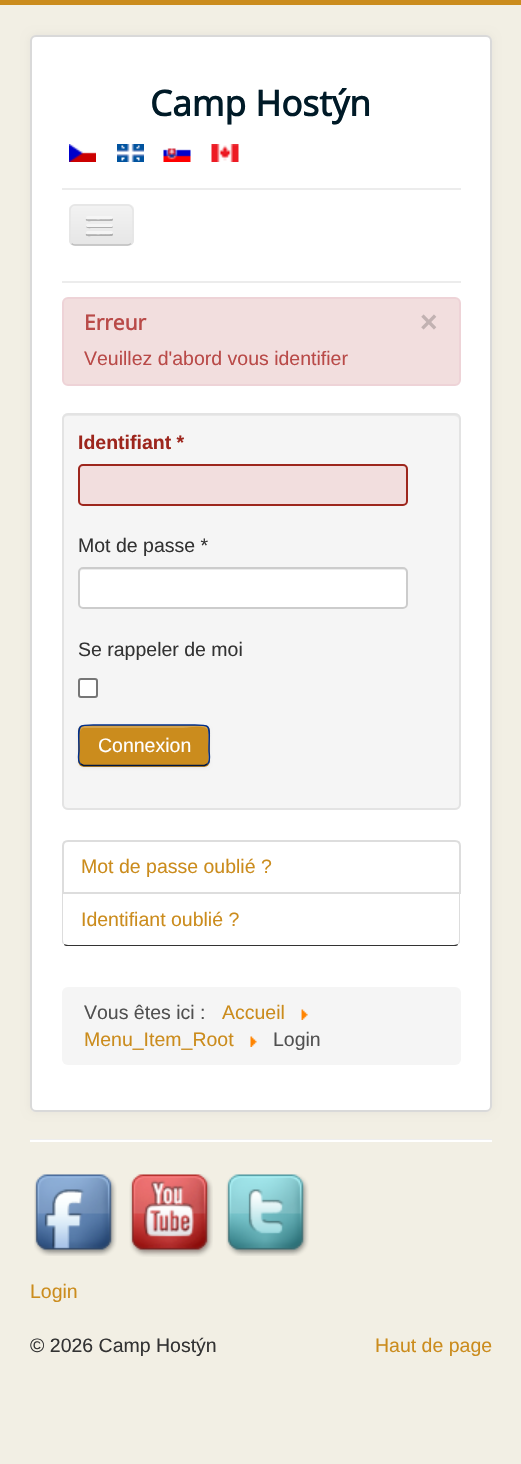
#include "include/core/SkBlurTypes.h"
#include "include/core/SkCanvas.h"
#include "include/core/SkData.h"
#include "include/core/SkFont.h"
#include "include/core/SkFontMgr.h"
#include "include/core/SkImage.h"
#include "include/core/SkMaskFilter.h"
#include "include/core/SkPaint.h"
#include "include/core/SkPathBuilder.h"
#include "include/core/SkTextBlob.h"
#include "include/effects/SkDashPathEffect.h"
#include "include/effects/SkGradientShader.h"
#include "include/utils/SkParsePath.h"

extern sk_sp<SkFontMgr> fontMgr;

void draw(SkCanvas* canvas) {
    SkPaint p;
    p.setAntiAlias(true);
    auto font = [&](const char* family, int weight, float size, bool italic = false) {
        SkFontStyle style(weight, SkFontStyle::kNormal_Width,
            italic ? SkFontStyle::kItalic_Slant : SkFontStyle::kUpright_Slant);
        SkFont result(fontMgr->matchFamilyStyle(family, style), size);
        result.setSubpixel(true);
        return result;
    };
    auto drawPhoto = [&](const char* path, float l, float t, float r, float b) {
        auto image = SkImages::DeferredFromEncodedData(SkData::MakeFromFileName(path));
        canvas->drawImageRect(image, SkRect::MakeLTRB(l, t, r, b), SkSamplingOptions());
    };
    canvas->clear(0xFFF2EFE4);
    p.setColor(0xFFCB8C1D);
    canvas->drawRect(SkRect::MakeLTRB(0, 0, 521, 5), p);
    p.setColor(0x0D000000);
    p.setMaskFilter(SkMaskFilter::MakeBlur(kNormal_SkBlurStyle, 4.5f));
    canvas->drawRoundRect(SkRect::MakeLTRB(30, 35, 492, 1112), 6, 6, p);
    p.setMaskFilter(nullptr);
    p.setColor(0xFFFFFFFF);
    canvas->drawRoundRect(SkRect::MakeLTRB(30, 35, 492, 1112), 6, 6, p);
    p.setStyle(SkPaint::kStroke_Style);
    p.setStrokeWidth(2);
    p.setColor(0x26000000);
    canvas->drawRoundRect(SkRect::MakeLTRB(31, 36, 491, 1111), 5, 5, p);
    auto font1 = font("Open Sans", 700, 35.25f);
    p.setStyle(SkPaint::kFill_Style);
    p.setColor(0xFF001A27);
    canvas->drawString("Camp Hostýn", 150, 116, font1, p);
    drawPhoto("media/1.png", 69, 144, 96, 162);
    drawPhoto("media/2.png", 117, 144, 144, 162);
    drawPhoto("media/3.png", 163, 148, 191, 162);
    drawPhoto("media/4.png", 211, 144, 239, 162);
    p.setColor(0xFFECECEC);
    canvas->drawRect(SkRect::MakeLTRB(62, 188, 461, 190), p);
    canvas->drawRect(SkRect::MakeLTRB(62, 281, 461, 283), p);
    p.setColor(0xFFEDEDED);
    canvas->drawRoundRect(SkRect::MakeLTRB(69, 204, 134, 246), 6, 6, p);
    canvas->save();
    canvas->clipPath(SkPathBuilder().moveTo(75, 204).lineTo(128, 204).cubicTo(131.5f, 204, 134, 206.5f, 134, 210).lineTo(134, 240).cubicTo(134, 243.5f, 131.5f, 246, 128, 246).lineTo(75, 246).cubicTo(71.5f, 246, 69, 243.5f, 69, 240).lineTo(69, 210).cubicTo(69, 206.5f, 71.5f, 204, 75, 204).close().detach(), true);
    {
        const SkColor colors[] = {0xFFF2F2F2, 0xFFE6E6E6};
        const float stops[] = {0, 1};
        const SkPoint ends[] = {{101, 206}, {101, 245}};
        p.setShader(SkGradientShader::MakeLinear(ends, colors, stops, 2, SkTileMode::kClamp));
        p.setAlpha(255);
    }
    canvas->drawRect(SkRect::MakeLTRB(69, 206, 134, 245), p);
    canvas->restore();
    p.setStyle(SkPaint::kStroke_Style);
    p.setStrokeWidth(1.5f);
    p.setShader(nullptr);
    p.setColor(0xFFBFBFBF);
    canvas->drawPath(SkPathBuilder().moveTo(131, 243.5f).cubicTo(130, 244.5f, 129, 245, 127.5f, 245).lineTo(75, 245).cubicTo(73.5f, 245, 72.5f, 244.5f, 71.5f, 243.5f).detach(), p);
    p.setColor(0xFFE6E6E6);
    canvas->drawPath(SkPathBuilder().moveTo(71.5f, 243.5f).cubicTo(70.5f, 242.5f, 70, 241.5f, 70, 240).lineTo(70, 210).cubicTo(70, 208.5f, 70.5f, 207.5f, 71.5f, 206.5f).cubicTo(72.5f, 205.5f, 73.5f, 205, 75, 205).lineTo(127.5f, 205).cubicTo(129, 205, 130, 205.5f, 131, 206.5f).cubicTo(132, 207.5f, 133, 208.5f, 133, 210).lineTo(133, 240).cubicTo(133, 241.5f, 132, 242.5f, 131, 243.5f).detach(), p);
    p.setStyle(SkPaint::kFill_Style);
    p.setColor(0xFFB3B3B3);
    canvas->drawPath(SkPathBuilder().moveTo(86, 219).cubicTo(84.5f, 222, 91.5f, 221, 91.5f, 221).lineTo(112, 221).cubicTo(113, 220.5f, 113.5f, 219, 112.5f, 218).lineTo(111, 219).cubicTo(109, 219.5f, 87, 219.5f, 86, 219).close().detach(), p);
    p.setColor(0xFFF5F5F5);
    canvas->drawRoundRect(SkRect::MakeLTRB(86, 216, 113, 219), 1.5f, 1.5f, p);
    p.setColor(0xFFB0B0B0);
    canvas->drawPath(SkPathBuilder().moveTo(86, 226).cubicTo(85.5f, 229, 91, 228, 91.5f, 228).lineTo(111.5f, 228).cubicTo(113, 228, 113.5f, 226, 112.5f, 225.5f).lineTo(111.5f, 226.5f).cubicTo(110, 227, 86.5f, 226.5f, 86, 226).close().detach(), p);
    p.setColor(0xFFF5F5F5);
    canvas->drawRoundRect(SkRect::MakeLTRB(86, 224, 113, 227), 1.5f, 1.5f, p);
    p.setColor(0xFFAFAFAF);
    canvas->drawPath(SkPathBuilder().moveTo(86, 234).cubicTo(84.5f, 237, 91.5f, 236, 91.5f, 236).lineTo(112, 236).cubicTo(113, 235.5f, 113.5f, 234, 112.5f, 233).lineTo(111, 234).cubicTo(109, 234.5f, 87, 234.5f, 86, 234).close().detach(), p);
    p.setColor(0xFFF5F5F5);
    canvas->drawRoundRect(SkRect::MakeLTRB(86, 231, 113, 234), 1.5f, 1.5f, p);
    p.setColor(0xFFF2DEDE);
    canvas->drawRoundRect(SkRect::MakeLTRB(63, 298, 460, 385), 5, 5, p);
    p.setStyle(SkPaint::kStroke_Style);
    p.setStrokeWidth(2);
    p.setColor(0xFFEED3D7);
    canvas->drawRoundRect(SkRect::MakeLTRB(63, 298, 460, 385), 5, 5, p);
    auto font2 = font("Open Sans", 700, 21);
    p.setStyle(SkPaint::kFill_Style);
    p.setColor(0xFFB94A48);
    canvas->drawString("Erreur", 84, 330, font2, p);
    auto font3 = font("Liberation Sans", 700, 30);
    p.setColor(0xFFC2B2B2);
    canvas->drawString("×", 420, 332, font3, p);
    auto font4 = font("Liberation Sans", 400, 19.5f);
    p.setColor(0xFFB94A48);
    canvas->drawString("Veuillez d'abord vous identifier", 84, 365, font4, p);
    p.setColor(0xFFF5F5F5);
    canvas->drawRoundRect(SkRect::MakeLTRB(62, 413, 461, 810), 6, 6, p);
    p.setColor(0xFFE9E9E9);
    canvas->drawPath(SkPathBuilder().moveTo(68, 416).lineTo(454, 416).cubicTo(457, 416, 459, 418, 459, 420).lineTo(459, 419).cubicTo(459, 416, 457, 414, 454, 414).lineTo(68, 414).cubicTo(65, 414, 63, 416, 63, 419).lineTo(63, 420).cubicTo(63, 418, 65, 416, 68, 416).close().detach(), p);
    p.setStyle(SkPaint::kStroke_Style);
    p.setColor(0xFFE3E3E3);
    canvas->drawRoundRect(SkRect::MakeLTRB(63, 414, 460, 809), 5, 5, p);
    auto font5 = font("Liberation Sans", 700, 19.5f);
    p.setStyle(SkPaint::kFill_Style);
    p.setColor(0xFF9D261D);
    canvas->drawString("Identifiant *", 78, 449, font5, p);
    p.setColor(0xFFF2DEDE);
    canvas->drawRoundRect(SkRect::MakeLTRB(78, 464, 408, 506), 5, 5, p);
    p.setColor(0xFFE0CDCD);
    canvas->drawPath(SkPathBuilder().moveTo(82, 466).lineTo(404, 466).cubicTo(407, 466, 406, 480, 406, 481).lineTo(406, 503).cubicTo(407, 503, 407, 502, 407, 501).lineTo(407, 468).cubicTo(407, 466, 406, 465, 404, 465).lineTo(83, 465).cubicTo(81, 465, 80, 466, 80, 468).lineTo(80, 470).cubicTo(80, 468, 81, 466, 82, 466).close().detach(), p);
    p.setStyle(SkPaint::kStroke_Style);
    p.setColor(0xFF9D261D);
    canvas->drawRoundRect(SkRect::MakeLTRB(79, 465, 407, 505), 4, 4, p);
    p.setStyle(SkPaint::kFill_Style);
    p.setColor(0xFF333333);
    canvas->drawString("Mot de passe *", 78, 552, font4, p);
    p.setColor(0xFFFFFFFF);
    canvas->drawRoundRect(SkRect::MakeLTRB(78, 567, 408, 609), 5, 5, p);
    p.setColor(0xFFECECEC);
    canvas->drawPath(SkPathBuilder().moveTo(82, 570).lineTo(404, 570).cubicTo(408, 570, 406, 583, 406, 584).lineTo(406, 607).cubicTo(407, 607, 407, 606, 407, 605).lineTo(407, 572).cubicTo(407, 570, 406, 569, 404, 569).lineTo(83, 569).cubicTo(81, 569, 80, 570, 80, 572).lineTo(80, 573).cubicTo(80, 571, 81, 570, 82, 570).close().detach(), p);
    p.setStyle(SkPaint::kStroke_Style);
    p.setColor(0xFFCCCCCC);
    canvas->drawRoundRect(SkRect::MakeLTRB(79, 568, 407, 608), 4, 4, p);
    p.setStyle(SkPaint::kFill_Style);
    p.setColor(0xFF333333);
    canvas->drawString("Se rappeler de moi", 78, 656, font4, p);
    p.setColor(0xFFFFFFFF);
    canvas->drawRoundRect(SkRect::MakeLTRB(79, 679, 97, 697), 2, 2, p);
    p.setStyle(SkPaint::kStroke_Style);
    p.setColor(0xFF767676);
    canvas->drawRoundRect(SkRect::MakeLTRB(79, 679, 97, 697), 2, 2, p);
    p.setStyle(SkPaint::kFill_Style);
    p.setColor(0x0D000000);
    p.setMaskFilter(SkMaskFilter::MakeBlur(kNormal_SkBlurStyle, 1.5f));
    canvas->drawRoundRect(SkRect::MakeLTRB(78, 726, 210, 768), 6, 6, p);
    p.setMaskFilter(nullptr);
    p.setColor(0xFFCB8C1D);
    canvas->drawRoundRect(SkRect::MakeLTRB(78, 725, 210, 767), 6, 6, p);
    p.setColor(0xFFD5A34A);
    canvas->drawPath(SkPathBuilder().moveTo(84, 728).lineTo(184, 728).cubicTo(189, 728, 206, 724, 208, 731).lineTo(208, 763).cubicTo(209, 762, 209, 761, 209, 760).lineTo(209, 731).cubicTo(209, 728, 207, 726, 204, 726).lineTo(85, 726).cubicTo(82, 726, 80, 728, 80, 731).lineTo(80, 732).cubicTo(80, 730, 82, 728, 84, 728).close().detach(), p);
    p.setStyle(SkPaint::kStroke_Style);
    p.setStrokeWidth(1.5f);
    p.setColor(0xFF001641);
    canvas->drawPath(SkPathBuilder().moveTo(207.5f, 764).lineTo(204.5f, 765.5f).lineTo(83.5f, 765.5f).lineTo(80.5f, 764).detach(), p);
    p.setColor(0xFF002F8D);
    canvas->drawPath(SkPathBuilder().moveTo(80.5f, 764).cubicTo(77, 761, 79, 754, 79, 750.5f).cubicTo(79, 721.5f, 74, 725, 104, 725).lineTo(184, 725).cubicTo(214, 725, 209, 721.5f, 209, 750.5f).cubicTo(209, 754, 211, 761, 207.5f, 764).detach(), p);
    p.setStyle(SkPaint::kFill_Style);
    p.setColor(0xFFFFFFFF);
    canvas->drawString("Connexion", 98, 752, font4, p);
    p.setStyle(SkPaint::kStroke_Style);
    p.setStrokeWidth(2);
    p.setColor(0xFFDDDDDD);
    canvas->drawPath(SkPathBuilder().moveTo(68, 841).lineTo(455, 841).cubicTo(458, 841, 460, 843, 460, 846).lineTo(460, 893).lineTo(63, 893).lineTo(63, 846).cubicTo(63, 843, 65, 841, 68, 841).close().detach(), p);
    p.setStyle(SkPaint::kFill_Style);
    p.setColor(0xFFCB8C1D);
    canvas->drawString("Mot de passe oublié ?", 81, 873, font4, p);
    p.setColor(0xFFDDDDDD);
    canvas->drawPath(SkPathBuilder().moveTo(460, 893).lineTo(460, 940).cubicTo(460, 942, 460, 944, 458, 944).cubicTo(458, 943, 459, 942, 459, 940).lineTo(459, 894).close().detach(), p);
    p.setColor(0xFF333333);
    canvas->drawPath(SkPathBuilder().moveTo(458, 944).cubicTo(458, 946, 456, 946, 454, 946).lineTo(68, 946).cubicTo(66, 946, 64, 946, 64, 944).cubicTo(65, 944, 66, 945, 68, 945).lineTo(454, 945).cubicTo(456, 945, 457, 944, 458, 944).close().detach(), p);
    p.setColor(0xFFDDDDDD);
    canvas->drawPath(SkPathBuilder().moveTo(63, 894).lineTo(63, 940).cubicTo(63, 942, 64, 943, 64, 944).cubicTo(62, 944, 62, 942, 62, 940).lineTo(62, 893).close().detach(), p);
    p.setColor(0xFFCB8C1D);
    canvas->drawString("Identifiant oublié ?", 81, 926, font4, p);
    p.setColor(0xFFF5F5F5);
    canvas->drawRoundRect(SkRect::MakeLTRB(62, 987, 461, 1065), 6, 6, p);
    p.setColor(0xFF515151);
    canvas->drawString("Vous êtes ici :", 84, 1019, font4, p);
    p.setColor(0xFFCB8C1D);
    canvas->drawString("Accueil", 222, 1019, font4, p);
    drawPhoto("media/5.png", 301, 1009, 308, 1020);
    canvas->drawString("Menu_Item_Root", 84, 1046, font4, p);
    drawPhoto("media/6.png", 250, 1036, 257, 1047);
    p.setColor(0xFF515151);
    canvas->drawString("Login", 273, 1046, font4, p);
    p.setColor(0xFFEEEEEE);
    canvas->drawRect(SkRect::MakeLTRB(30, 1139, 492, 1140), p);
    p.setColor(0xFFFFFFFF);
    canvas->drawRect(SkRect::MakeLTRB(30, 1140, 492, 1142), p);
    drawPhoto("media/7.png", 34, 1174, 117, 1256);
    drawPhoto("media/8.png", 129, 1174, 213, 1257);
    drawPhoto("media/9.png", 226, 1174, 309, 1256);
    p.setColor(0xFFCB8C1D);
    canvas->drawString("Login", 30, 1298, font4, p);
    p.setColor(0xFF333333);
    canvas->drawString("© 2026 Camp Hostýn", 30, 1352, font4, p);
    p.setColor(0xFFCB8C1D);
    canvas->drawString("Haut de page", 375, 1352, font4, p);
}
